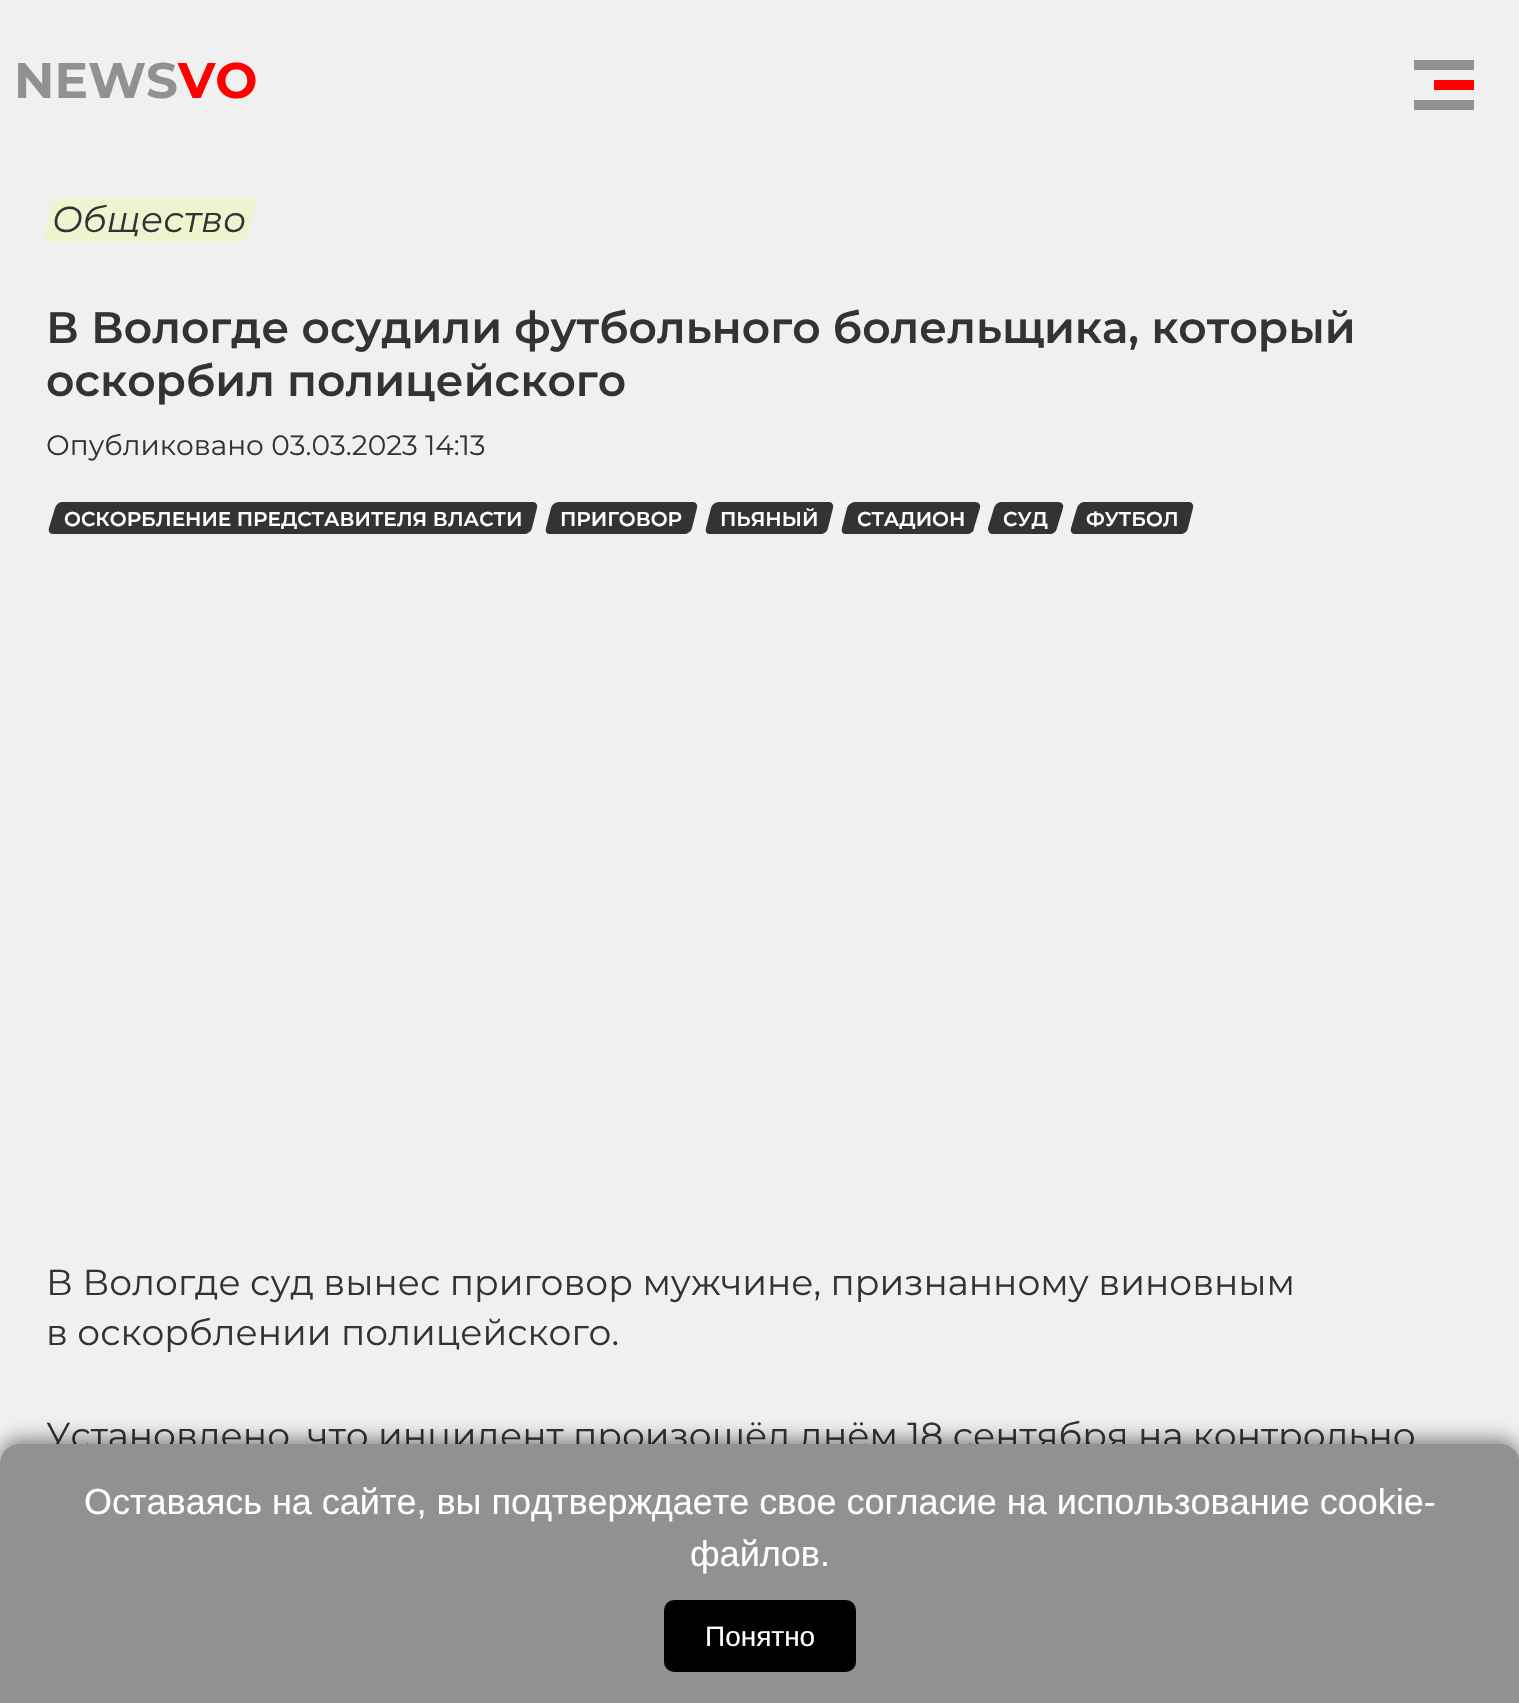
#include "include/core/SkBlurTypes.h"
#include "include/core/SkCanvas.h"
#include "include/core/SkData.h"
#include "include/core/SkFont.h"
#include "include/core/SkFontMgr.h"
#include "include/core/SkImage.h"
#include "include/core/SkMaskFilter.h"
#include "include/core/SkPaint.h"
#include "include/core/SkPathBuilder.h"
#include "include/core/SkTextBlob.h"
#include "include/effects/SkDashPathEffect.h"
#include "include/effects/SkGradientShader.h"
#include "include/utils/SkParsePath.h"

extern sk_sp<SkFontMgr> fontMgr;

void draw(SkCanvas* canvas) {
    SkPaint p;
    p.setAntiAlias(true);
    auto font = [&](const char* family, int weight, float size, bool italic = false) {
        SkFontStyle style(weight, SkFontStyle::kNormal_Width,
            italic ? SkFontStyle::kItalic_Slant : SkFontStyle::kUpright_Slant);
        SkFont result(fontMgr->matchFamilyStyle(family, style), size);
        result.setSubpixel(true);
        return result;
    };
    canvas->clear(0xFFF0F0F0);
    auto font1 = font("Montserrat", 700, 50);
    p.setColor(0xFF919191);
    canvas->drawString("NEWS", 14, 98, font1, p);
    p.setColor(0xFFFF0000);
    canvas->drawString("VO", 178, 98, font1, p);
    {
        const struct { float l, t, r, b; SkColor color; } items[] = {
            {1414, 60, 1474, 70, 0xFF919191},
            {1434, 80, 1474, 90, 0xFFFF0000},
            {1414, 100, 1474, 110, 0xFF919191},
        };
        for (auto [l, t, r, b, color] : items) {
            p.setColor(color);
            canvas->drawRect(SkRect::MakeLTRB(l, t, r, b), p);
        }
    }
    p.setColor(0xFFEDF5D0);
    canvas->drawPath(SkPathBuilder().moveTo(60, 198).lineTo(252, 198).cubicTo(255, 198, 257, 201, 256, 204).lineTo(248, 236).cubicTo(247, 239, 244, 242, 240, 242).lineTo(48, 242).cubicTo(45, 242, 43, 239, 44, 236).lineTo(52, 204).cubicTo(53, 201, 57, 198, 60, 198).close().detach(), p);
    auto font2 = font("Montserrat", 400, 36, true);
    p.setColor(0xFF333333);
    canvas->drawString("Общество", 52, 232, font2, p);
    auto font3 = font("Montserrat", 600, 44);
    canvas->drawString("В Вологде осудили футбольного болельщика, который", 46, 343, font3, p);
    canvas->drawString("оскорбил полицейского", 46, 396, font3, p);
    auto font4 = font("Montserrat", 400, 28);
    canvas->drawString("Опубликовано 03.03.2023 14:13", 46, 455, font4, p);
    canvas->drawPath(SkPathBuilder().moveTo(62, 502).lineTo(533, 502).cubicTo(536, 502, 538, 505, 537, 508).lineTo(532, 528).cubicTo(531, 532, 527, 534, 524, 534).lineTo(54, 534).cubicTo(50, 534, 48, 532, 49, 528).lineTo(55, 508).cubicTo(56, 505, 59, 502, 62, 502).close().detach(), p);
    auto font5 = font("Montserrat", 600, 20);
    p.setColor(0xFFFFFFFF);
    canvas->drawString("ОСКОРБЛЕНИЕ ПРЕДСТАВИТЕЛЯ ВЛАСТИ", 64, 526, font5, p);
    p.setColor(0xFF333333);
    canvas->drawPath(SkPathBuilder().moveTo(559, 502).lineTo(693, 502).cubicTo(696, 502, 698, 505, 697, 508).lineTo(692, 528).cubicTo(691, 532, 687, 534, 684, 534).lineTo(550, 534).cubicTo(547, 534, 545, 532, 546, 528).lineTo(551, 508).cubicTo(552, 505, 555, 502, 559, 502).close().detach(), p);
    p.setColor(0xFFFFFFFF);
    canvas->drawString("ПРИГОВОР", 560, 526, font5, p);
    p.setColor(0xFF333333);
    canvas->drawPath(SkPathBuilder().moveTo(719, 502).lineTo(829, 502).cubicTo(832, 502, 834, 505, 833, 508).lineTo(828, 528).cubicTo(827, 532, 824, 534, 820, 534).lineTo(710, 534).cubicTo(707, 534, 705, 532, 706, 528).lineTo(711, 508).cubicTo(712, 505, 715, 502, 719, 502).close().detach(), p);
    p.setColor(0xFFFFFFFF);
    canvas->drawString("ПЬЯНЫЙ", 720, 526, font5, p);
    p.setColor(0xFF333333);
    canvas->drawPath(SkPathBuilder().moveTo(855, 502).lineTo(975, 502).cubicTo(979, 502, 981, 505, 980, 508).lineTo(974, 528).cubicTo(974, 532, 970, 534, 967, 534).lineTo(846, 534).cubicTo(843, 534, 841, 532, 842, 528).lineTo(847, 508).cubicTo(848, 505, 852, 502, 855, 502).close().detach(), p);
    p.setColor(0xFFFFFFFF);
    canvas->drawString("СТАДИОН", 857, 526, font5, p);
    p.setColor(0xFF333333);
    canvas->drawPath(SkPathBuilder().moveTo(1001, 502).lineTo(1058, 502).cubicTo(1062, 502, 1064, 505, 1063, 508).lineTo(1057, 528).cubicTo(1056, 532, 1053, 534, 1050, 534).lineTo(993, 534).cubicTo(990, 534, 988, 532, 988, 528).lineTo(994, 508).cubicTo(995, 505, 998, 502, 1001, 502).close().detach(), p);
    p.setColor(0xFFFFFFFF);
    canvas->drawString("СУД", 1003, 526, font5, p);
    p.setColor(0xFF333333);
    canvas->drawPath(SkPathBuilder().moveTo(1084, 502).lineTo(1189, 502).cubicTo(1192, 502, 1194, 505, 1193, 508).lineTo(1188, 528).cubicTo(1187, 532, 1184, 534, 1180, 534).lineTo(1076, 534).cubicTo(1072, 534, 1070, 532, 1071, 528).lineTo(1077, 508).cubicTo(1078, 505, 1081, 502, 1084, 502).close().detach(), p);
    p.setColor(0xFFFFFFFF);
    canvas->drawString("ФУТБОЛ", 1086, 526, font5, p);
    auto font6 = font("Montserrat", 400, 36);
    p.setColor(0xFF333333);
    {
        const struct { const char* s; float x, y; } items[] = {
            {"В Вологде суд вынес приговор мужчине, признанному виновным", 46, 1295},
            {"в оскорблении полицейского.", 46, 1345},
            {"Установлено, что инцидент произошёл днём 18 сентября на контрольно", 46, 1448},
        };
        for (auto [s, x, y] : items) {
            canvas->drawString(s, x, y, font6, p);
        }
    }
    p.setColor(0x80000000);
    p.setMaskFilter(SkMaskFilter::MakeBlur(kNormal_SkBlurStyle, 10));
    canvas->drawRoundRect(SkRect::MakeLTRB(0, 1440, 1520, 1700), 20, 20, p);
    p.setMaskFilter(nullptr);
    p.setColor(0xFF919191);
    canvas->drawPath(SkPathBuilder().moveTo(20, 1444).lineTo(1500, 1444).cubicTo(1511, 1444, 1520, 1453, 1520, 1464).lineTo(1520, 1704).lineTo(0, 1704).lineTo(0, 1464).cubicTo(0, 1453, 9, 1444, 20, 1444).close().detach(), p);
    auto font7 = font("Liberation Sans", 400, 36);
    p.setColor(0xFFFFFFFF);
    canvas->drawString("Оставаясь на сайте, вы подтверждаете свое согласие на использование cookie-", 84, 1514, font7, p);
    canvas->drawString("файлов.", 690, 1566, font7, p);
    p.setColor(0xFF000000);
    canvas->drawRoundRect(SkRect::MakeLTRB(664, 1600, 856, 1672), 10, 10, p);
    auto font8 = font("Liberation Sans", 400, 28);
    p.setColor(0xFFFFFFFF);
    canvas->drawString("Понятно", 705, 1646, font8, p);
}
